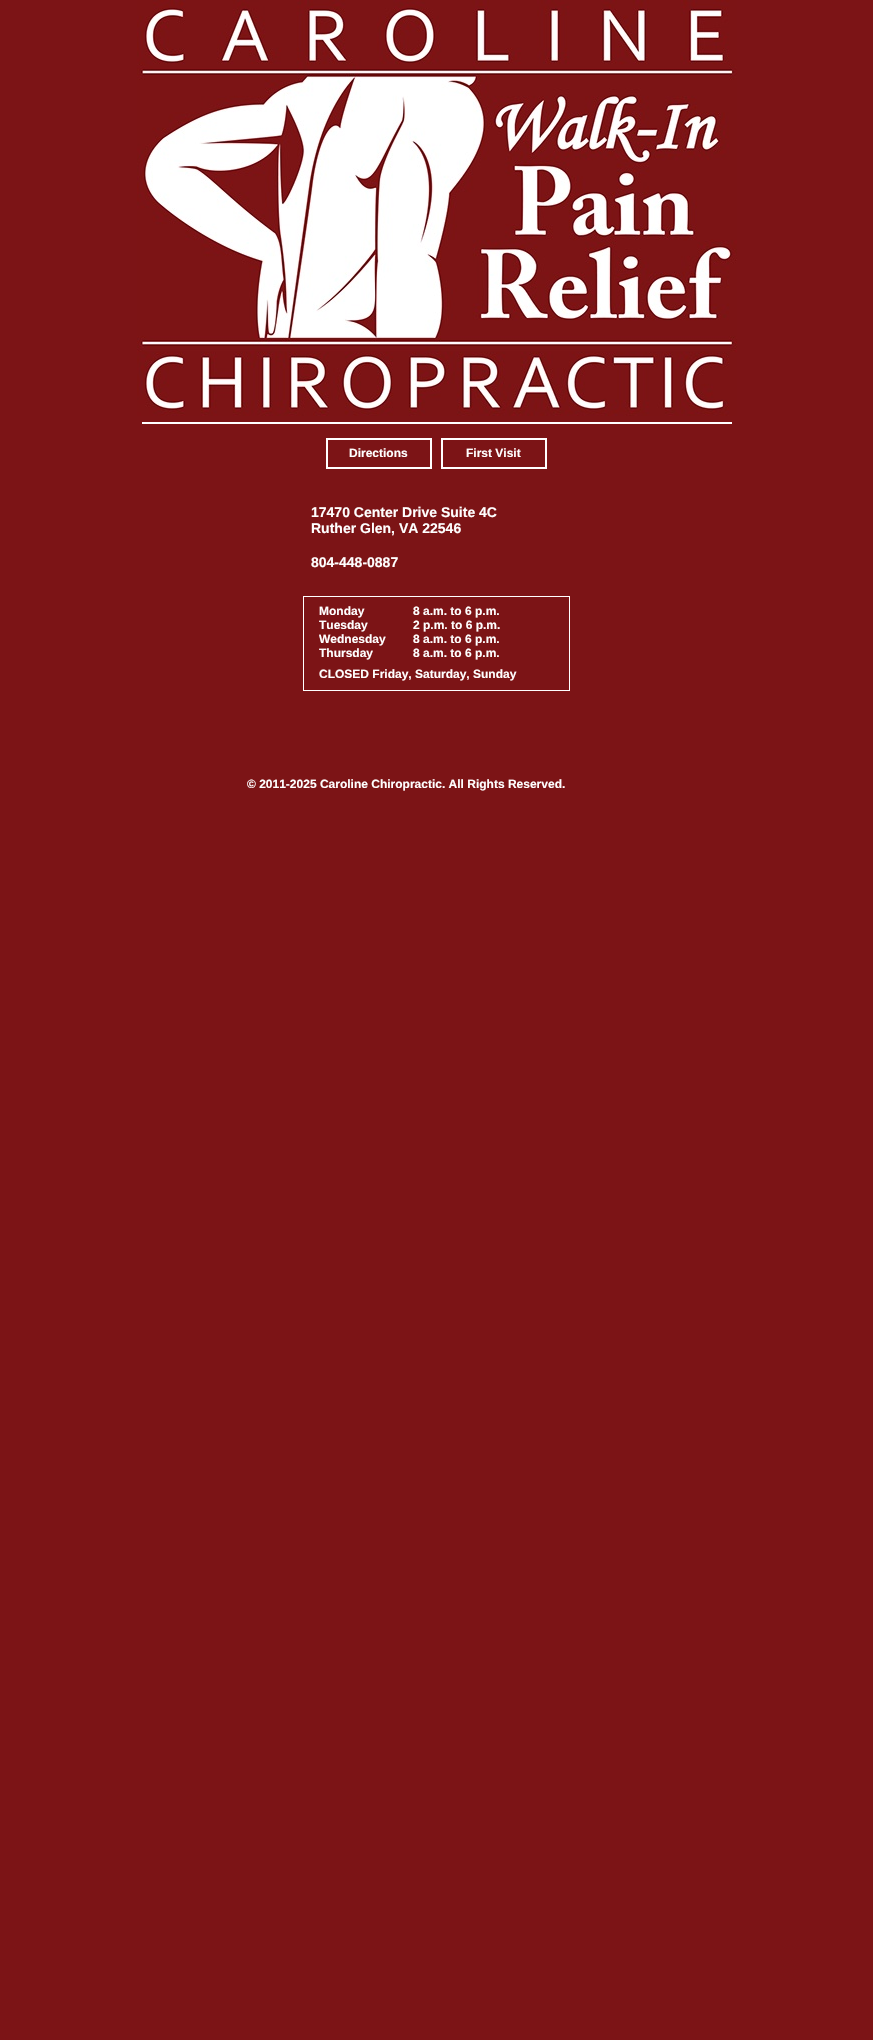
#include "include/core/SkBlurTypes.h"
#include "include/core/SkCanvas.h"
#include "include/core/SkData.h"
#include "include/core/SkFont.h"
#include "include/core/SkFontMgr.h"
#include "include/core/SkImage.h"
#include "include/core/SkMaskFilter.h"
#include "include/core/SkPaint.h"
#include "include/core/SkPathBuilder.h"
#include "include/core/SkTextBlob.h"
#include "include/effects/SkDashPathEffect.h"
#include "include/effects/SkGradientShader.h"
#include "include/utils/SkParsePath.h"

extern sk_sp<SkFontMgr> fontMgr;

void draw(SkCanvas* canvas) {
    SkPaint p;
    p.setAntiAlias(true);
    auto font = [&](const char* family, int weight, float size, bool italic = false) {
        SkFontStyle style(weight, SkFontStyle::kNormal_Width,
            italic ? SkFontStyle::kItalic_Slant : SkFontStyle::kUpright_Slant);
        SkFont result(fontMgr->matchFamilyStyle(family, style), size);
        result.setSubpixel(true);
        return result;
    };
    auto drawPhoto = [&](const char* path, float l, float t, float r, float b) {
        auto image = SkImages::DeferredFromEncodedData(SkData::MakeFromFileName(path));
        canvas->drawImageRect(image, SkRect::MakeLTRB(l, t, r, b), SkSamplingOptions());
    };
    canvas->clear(0xFF7C1416);
    drawPhoto("media/1.png", 137, 0, 737, 416);
    p.setColor(0xFFFFFFFF);
    canvas->drawRect(SkRect::MakeLTRB(142, 422, 732, 424), p);
    p.setStyle(SkPaint::kStroke_Style);
    p.setStrokeWidth(2);
    canvas->drawRect(SkRect::MakeLTRB(327, 439, 431, 468), p);
    auto font1 = font("Liberation Sans", 700, 12);
    p.setStyle(SkPaint::kFill_Style);
    canvas->drawString("Directions", 349, 457, font1, p);
    p.setStyle(SkPaint::kStroke_Style);
    canvas->drawRect(SkRect::MakeLTRB(442, 439, 546, 468), p);
    p.setStyle(SkPaint::kFill_Style);
    canvas->drawString("First Visit", 466, 457, font1, p);
    auto font2 = font("Liberation Sans", 700, 14);
    {
        const struct { const char* s; float x, y; } items[] = {
            {"17470 Center Drive Suite 4C", 311, 517},
            {"Ruther Glen, VA 22546", 311, 533},
            {"804-448-0887", 311, 567},
        };
        for (auto [s, x, y] : items) {
            canvas->drawString(s, x, y, font2, p);
        }
    }
    p.setStyle(SkPaint::kStroke_Style);
    p.setStrokeWidth(1);
    canvas->drawRect(SkRect::MakeLTRB(303.5f, 596.5f, 569.5f, 690.5f), p);
    p.setStyle(SkPaint::kFill_Style);
    {
        const struct { const char* s; float x, y; } items[] = {
            {"Monday", 319, 615},
            {"Tuesday", 319, 629},
            {"Wednesday", 319, 643},
            {"Thursday", 319, 657},
            {"8 a.m. to 6 p.m.", 413, 615},
            {"2 p.m. to 6 p.m.", 413, 629},
            {"8 a.m. to 6 p.m.", 413, 643},
            {"8 a.m. to 6 p.m.", 413, 657},
            {"CLOSED Friday, Saturday, Sunday", 319, 678},
            {"© 2011-2025 Caroline Chiropractic. All Rights Reserved.", 247, 788},
        };
        for (auto [s, x, y] : items) {
            canvas->drawString(s, x, y, font1, p);
        }
    }
}
